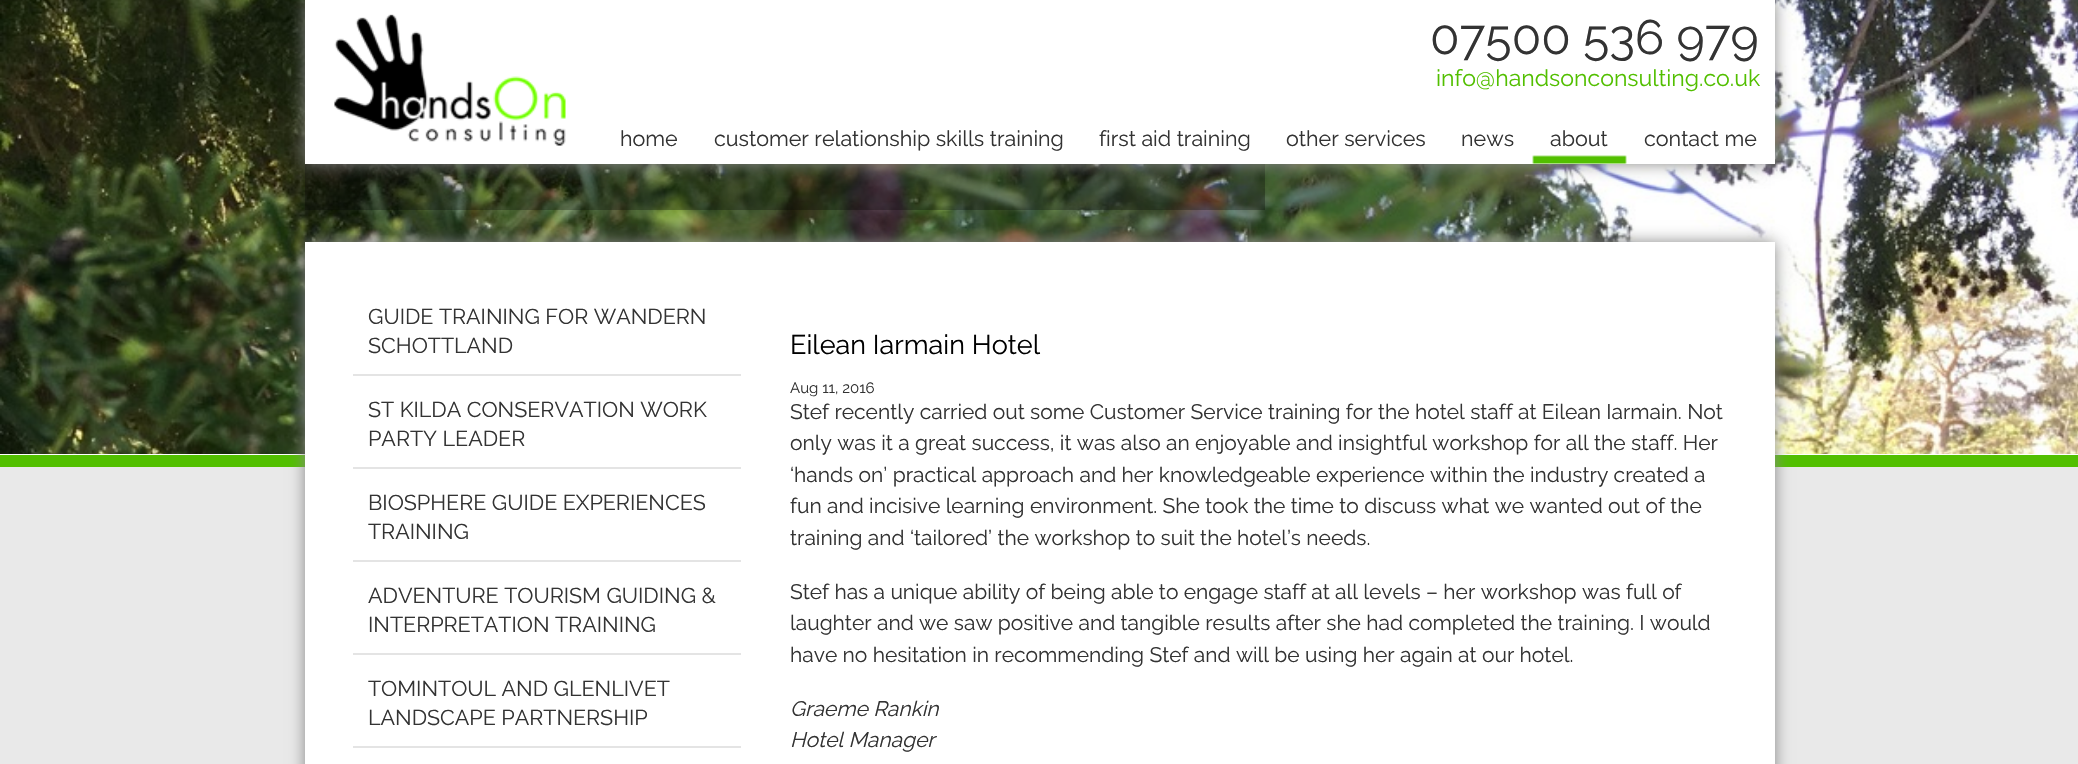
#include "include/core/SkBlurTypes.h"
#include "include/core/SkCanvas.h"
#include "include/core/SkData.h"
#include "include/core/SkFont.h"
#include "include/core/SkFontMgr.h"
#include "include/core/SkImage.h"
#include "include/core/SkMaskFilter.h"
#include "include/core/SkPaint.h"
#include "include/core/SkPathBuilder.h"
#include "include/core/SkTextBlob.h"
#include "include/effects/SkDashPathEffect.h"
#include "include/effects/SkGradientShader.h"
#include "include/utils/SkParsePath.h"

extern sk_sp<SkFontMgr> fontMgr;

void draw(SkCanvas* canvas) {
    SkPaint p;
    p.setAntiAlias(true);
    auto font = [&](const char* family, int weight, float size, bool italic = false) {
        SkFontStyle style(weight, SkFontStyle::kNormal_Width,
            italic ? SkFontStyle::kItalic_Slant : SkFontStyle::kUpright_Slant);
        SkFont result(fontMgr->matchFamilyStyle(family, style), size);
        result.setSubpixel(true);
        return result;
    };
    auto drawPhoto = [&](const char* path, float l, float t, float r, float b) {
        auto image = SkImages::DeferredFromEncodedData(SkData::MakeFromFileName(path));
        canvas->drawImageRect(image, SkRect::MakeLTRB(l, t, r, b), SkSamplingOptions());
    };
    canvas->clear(0xFFE9E9E9);
    p.setColor(0xFF52BF00);
    canvas->drawRect(SkRect::MakeLTRB(0, 455, 2078, 467), p);
    p.setColor(0xFFFFFFFF);
    canvas->drawRect(SkRect::MakeLTRB(0, 454, 2078, 455), p);
    drawPhoto("media/1.png", 0, 0, 2078, 454);
    p.setColor(0x4D000000);
    canvas->drawRect(SkRect::MakeLTRB(305, 164, 1265, 210), p);
    p.setColor(0xFF888888);
    p.setMaskFilter(SkMaskFilter::MakeBlur(kNormal_SkBlurStyle, 7.5f));
    canvas->drawRect(SkRect::MakeLTRB(305, 0, 1775, 164), p);
    p.setMaskFilter(nullptr);
    p.setColor(0xFFFFFFFF);
    canvas->drawRect(SkRect::MakeLTRB(305, 0, 1775, 164), p);
    drawPhoto("media/2.png", 334, 14, 566, 146);
    auto font1 = font("Raleway", 400, 48.25f);
    p.setColor(0xFF333333);
    canvas->drawString("07500 536 979", 1430, 54, font1, p);
    auto font2 = font("Raleway", 400, 23.1f);
    p.setColor(0xFF52BF00);
    canvas->drawString("info@handsonconsulting.co.uk", 1436, 86, font2, p);
    auto font3 = font("Raleway", 400, 21.5f);
    p.setColor(0xFF333333);
    {
        const struct { const char* s; float x, y; } items[] = {
            {"home", 620, 146},
            {"customer relationship skills training", 714, 146},
            {"first aid training", 1099, 146},
            {"other services", 1286, 146},
            {"news", 1461, 146},
        };
        for (auto [s, x, y] : items) {
            canvas->drawString(s, x, y, font3, p);
        }
    }
    drawPhoto("media/3.png", 1532, 155, 1627, 164);
    canvas->drawString("about", 1550, 146, font3, p);
    canvas->drawString("contact me", 1644, 146, font3, p);
    p.setColor(0xFF888888);
    p.setMaskFilter(SkMaskFilter::MakeBlur(kNormal_SkBlurStyle, 7.5f));
    canvas->drawRect(SkRect::MakeLTRB(305, 242, 1775, 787), p);
    p.setMaskFilter(nullptr);
    p.setColor(0xFFFFFFFF);
    canvas->drawRect(SkRect::MakeLTRB(305, 242, 1775, 764), p);
    p.setColor(0xFFE4E4E4);
    canvas->drawRect(SkRect::MakeLTRB(353, 374, 741, 376), p);
    p.setColor(0xFF333333);
    canvas->drawString("GUIDE TRAINING FOR WANDERN", 368, 324, font3, p);
    canvas->drawString("SCHOTTLAND", 368, 353, font3, p);
    p.setColor(0xFFE4E4E4);
    canvas->drawRect(SkRect::MakeLTRB(353, 467, 741, 469), p);
    p.setColor(0xFF333333);
    canvas->drawString("ST KILDA CONSERVATION WORK", 368, 417, font3, p);
    canvas->drawString("PARTY LEADER", 368, 446, font3, p);
    p.setColor(0xFFE4E4E4);
    canvas->drawRect(SkRect::MakeLTRB(353, 560, 741, 562), p);
    p.setColor(0xFF333333);
    canvas->drawString("BIOSPHERE GUIDE EXPERIENCES", 368, 510, font3, p);
    canvas->drawString("TRAINING", 368, 539, font3, p);
    p.setColor(0xFFE4E4E4);
    canvas->drawRect(SkRect::MakeLTRB(353, 653, 741, 655), p);
    p.setColor(0xFF333333);
    canvas->drawString("ADVENTURE TOURISM GUIDING &", 368, 603, font3, p);
    canvas->drawString("INTERPRETATION TRAINING", 368, 632, font3, p);
    p.setColor(0xFFE4E4E4);
    canvas->drawRect(SkRect::MakeLTRB(353, 746, 741, 748), p);
    p.setColor(0xFF333333);
    canvas->drawString("TOMINTOUL AND GLENLIVET", 368, 696, font3, p);
    canvas->drawString("LANDSCAPE PARTNERSHIP", 368, 725, font3, p);
    auto font4 = font("Raleway", 400, 27);
    p.setColor(0xFF000000);
    canvas->drawString("Eilean Iarmain Hotel", 790, 354, font4, p);
    auto font5 = font("Raleway", 400, 15);
    p.setColor(0xFF333333);
    canvas->drawString("Aug 11, 2016", 790, 393, font5, p);
    auto font6 = font("Raleway", 400, 21);
    {
        const struct { const char* s; float x, y; } items[] = {
            {"Stef recently carried out some Customer Service training for the hotel staff at Eilean Iarmain. Not", 790, 419},
            {"only was it a great success, it was also an enjoyable and insightful workshop for all the staff. Her", 790, 450},
            {"‘hands on’ practical approach and her knowledgeable experience within the industry created a", 790, 482},
            {"fun and incisive learning environment. She took the time to discuss what we wanted out of the", 790, 513},
            {"training and ‘tailored’ the workshop to suit the hotel’s needs.", 790, 545},
            {"Stef has a unique ability of being able to engage staff at all levels – her workshop was full of", 790, 599},
            {"laughter and we saw positive and tangible results after she had completed the training. I would", 790, 630},
            {"have no hesitation in recommending Stef and will be using her again at our hotel.", 790, 662},
        };
        for (auto [s, x, y] : items) {
            canvas->drawString(s, x, y, font6, p);
        }
    }
    auto font7 = font("Raleway", 400, 21, true);
    canvas->drawString("Graeme Rankin", 790, 716, font7, p);
    canvas->drawString("Hotel Manager", 790, 747, font7, p);
}
